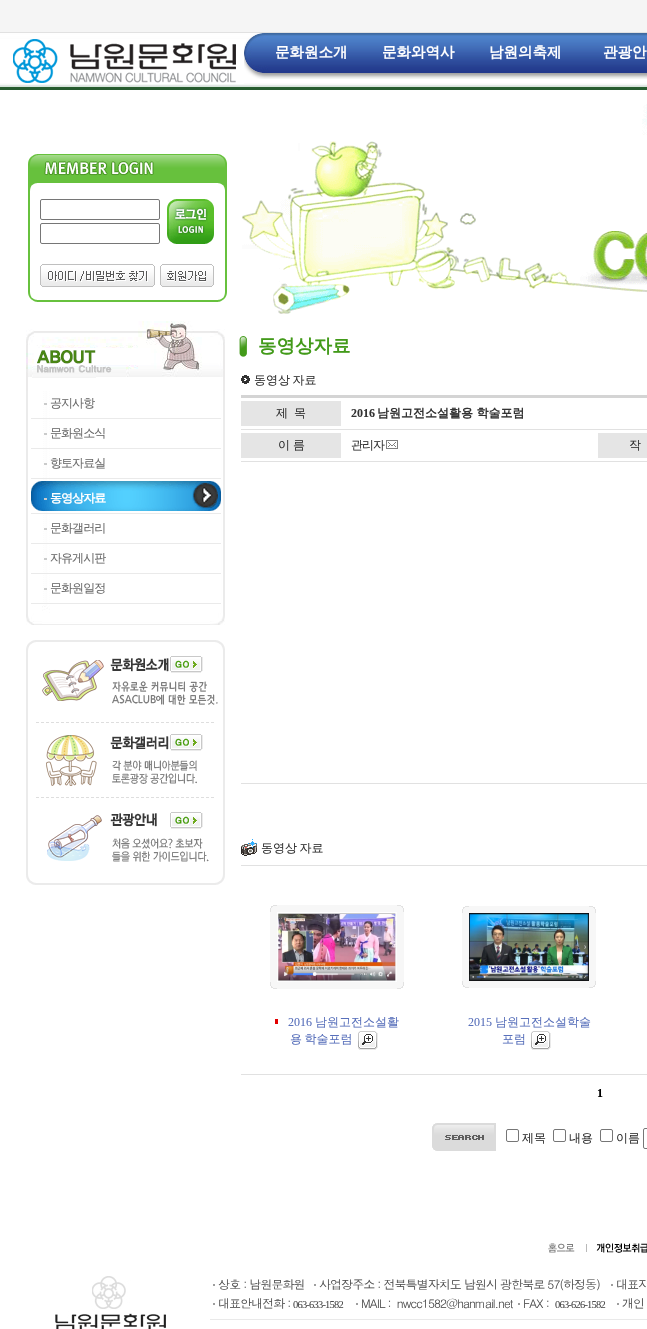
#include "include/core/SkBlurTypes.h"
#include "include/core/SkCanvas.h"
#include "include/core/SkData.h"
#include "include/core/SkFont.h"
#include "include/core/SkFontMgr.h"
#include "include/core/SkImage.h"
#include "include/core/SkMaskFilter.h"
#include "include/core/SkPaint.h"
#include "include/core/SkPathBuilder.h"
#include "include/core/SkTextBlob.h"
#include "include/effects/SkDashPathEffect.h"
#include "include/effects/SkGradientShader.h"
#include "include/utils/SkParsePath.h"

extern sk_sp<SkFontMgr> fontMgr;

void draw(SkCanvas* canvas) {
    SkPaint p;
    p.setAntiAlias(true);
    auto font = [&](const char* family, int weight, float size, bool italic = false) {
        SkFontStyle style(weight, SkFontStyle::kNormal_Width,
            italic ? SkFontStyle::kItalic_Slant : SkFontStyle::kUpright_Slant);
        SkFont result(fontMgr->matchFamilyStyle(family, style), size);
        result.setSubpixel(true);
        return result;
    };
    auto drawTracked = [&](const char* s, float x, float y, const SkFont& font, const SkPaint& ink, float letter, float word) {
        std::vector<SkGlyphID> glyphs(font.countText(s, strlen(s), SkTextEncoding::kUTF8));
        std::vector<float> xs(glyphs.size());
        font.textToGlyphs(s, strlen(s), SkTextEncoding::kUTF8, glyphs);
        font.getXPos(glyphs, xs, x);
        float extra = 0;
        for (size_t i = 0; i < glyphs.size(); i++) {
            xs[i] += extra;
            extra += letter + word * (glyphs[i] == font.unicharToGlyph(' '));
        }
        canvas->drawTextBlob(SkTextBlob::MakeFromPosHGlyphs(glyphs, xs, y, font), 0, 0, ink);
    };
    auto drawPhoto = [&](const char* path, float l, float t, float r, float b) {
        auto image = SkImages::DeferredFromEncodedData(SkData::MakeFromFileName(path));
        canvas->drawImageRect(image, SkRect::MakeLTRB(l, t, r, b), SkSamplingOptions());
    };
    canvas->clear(0xFFFFFFFF);
    drawPhoto("media/1.png", 0, 0, 647, 90);
    drawPhoto("media/2.png", 10, 39, 244, 84);
    drawPhoto("media/3.png", 244, 33, 647, 79);
    auto font1 = font("WenQuanYi Zen Hei", 700, 14.5f);
    p.setColor(0xFFFFFFFF);
    {
        const struct { const char* s; float x, y; } items[] = {
            {"문화원소개", 275, 57},
            {"문화와역사", 382, 57},
            {"남원의축제", 489, 57},
            {"관광안", 603, 57},
        };
        for (auto [s, x, y] : items) {
            canvas->drawString(s, x, y, font1, p);
        }
    }
    drawPhoto("media/4.png", 28, 154, 227, 302);
    p.setStyle(SkPaint::kStroke_Style);
    p.setStrokeWidth(1);
    p.setColor(0xFF767676);
    canvas->drawRoundRect(SkRect::MakeLTRB(40.5f, 199.5f, 159.5f, 219.5f), 1.5f, 1.5f, p);
    drawPhoto("media/5.png", 167, 199, 214, 244);
    canvas->drawRoundRect(SkRect::MakeLTRB(40.5f, 223.5f, 159.5f, 243.5f), 1.5f, 1.5f, p);
    drawPhoto("media/6.png", 40, 264, 155, 287);
    drawPhoto("media/7.png", 160, 264, 214, 287);
    drawPhoto("media/8.png", 242, 104, 647, 314);
    drawPhoto("media/9.png", 26, 391, 225, 606);
    drawPhoto("media/10.png", 26, 321, 225, 391);
    auto font2 = font("WenQuanYi Zen Hei", 500, 12);
    p.setStyle(SkPaint::kFill_Style);
    p.setColor(0xFF6B6B6B);
    drawTracked("공지사항", 50, 407, font2, p, -0.95f, 0);
    p.setColor(0xFFCACBCB);
    canvas->drawRect(SkRect::MakeLTRB(44, 403, 47, 405), p);
    p.setColor(0xFFEAEAEA);
    canvas->drawRect(SkRect::MakeLTRB(31, 418, 221, 419), p);
    p.setColor(0xFF6B6B6B);
    drawTracked("문화원소식", 50, 437, font2, p, -0.95f, 0);
    p.setColor(0xFFCACBCB);
    canvas->drawRect(SkRect::MakeLTRB(44, 433, 47, 435), p);
    p.setColor(0xFFEAEAEA);
    canvas->drawRect(SkRect::MakeLTRB(31, 448, 221, 449), p);
    p.setColor(0xFF6B6B6B);
    drawTracked("향토자료실", 50, 467, font2, p, -0.95f, 0);
    p.setColor(0xFFCACBCB);
    canvas->drawRect(SkRect::MakeLTRB(44, 463, 47, 465), p);
    p.setColor(0xFFEAEAEA);
    canvas->drawRect(SkRect::MakeLTRB(31, 478, 221, 479), p);
    drawPhoto("media/11.png", 31, 481, 221, 511);
    p.setColor(0xFFCACBCB);
    canvas->drawRect(SkRect::MakeLTRB(44, 498, 47, 500), p);
    auto font3 = font("WenQuanYi Zen Hei", 700, 12);
    p.setColor(0xFFFFFFFF);
    drawTracked("동영상자료", 50, 502, font3, p, -0.95f, 0);
    p.setColor(0xFFEAEAEA);
    canvas->drawRect(SkRect::MakeLTRB(31, 513, 221, 514), p);
    p.setColor(0xFF6B6B6B);
    drawTracked("문화갤러리", 50, 532, font2, p, -0.95f, 0);
    p.setColor(0xFFCACBCB);
    canvas->drawRect(SkRect::MakeLTRB(44, 528, 47, 530), p);
    p.setColor(0xFFEAEAEA);
    canvas->drawRect(SkRect::MakeLTRB(31, 543, 221, 544), p);
    p.setColor(0xFF6B6B6B);
    drawTracked("자유게시판", 50, 562, font2, p, -0.95f, 0);
    p.setColor(0xFFCACBCB);
    canvas->drawRect(SkRect::MakeLTRB(44, 558, 47, 560), p);
    p.setColor(0xFFEAEAEA);
    canvas->drawRect(SkRect::MakeLTRB(31, 573, 221, 574), p);
    p.setColor(0xFF6B6B6B);
    drawTracked("문화원일정", 50, 592, font2, p, -0.95f, 0);
    p.setColor(0xFFCACBCB);
    canvas->drawRect(SkRect::MakeLTRB(44, 588, 47, 590), p);
    p.setColor(0xFFEAEAEA);
    canvas->drawRect(SkRect::MakeLTRB(31, 603, 221, 604), p);
    drawPhoto("media/12.png", 26, 606, 225, 625);
    drawPhoto("media/13.png", 26, 640, 225, 656);
    drawPhoto("media/14.png", 26, 656, 169, 673);
    drawPhoto("media/15.png", 170, 656, 203, 673);
    p.setColor(0xFFEBEBEB);
    canvas->drawRect(SkRect::MakeLTRB(223, 656, 225, 673), p);
    drawPhoto("media/16.png", 26, 673, 225, 723);
    drawPhoto("media/17.png", 26, 723, 225, 734);
    drawPhoto("media/18.png", 26, 734, 169, 751);
    drawPhoto("media/15.png", 170, 734, 203, 751);
    canvas->drawRect(SkRect::MakeLTRB(223, 734, 225, 751), p);
    drawPhoto("media/19.png", 26, 751, 225, 798);
    drawPhoto("media/20.png", 26, 798, 225, 812);
    drawPhoto("media/21.png", 26, 812, 157, 829);
    drawPhoto("media/15.png", 170, 812, 203, 829);
    canvas->drawRect(SkRect::MakeLTRB(223, 812, 225, 829), p);
    drawPhoto("media/22.png", 26, 829, 225, 885);
    drawPhoto("media/23.png", 239, 336, 247, 357);
    auto font4 = font("WenQuanYi Zen Hei", 700, 18.5f);
    p.setColor(0xFF429A19);
    canvas->drawString("동영상자료", 258, 352, font4, p);
    drawPhoto("media/24.png", 241, 375, 250, 384);
    p.setColor(0xFF333333);
    drawTracked("동영상 자료", 254, 384, font2, p, 0, -1);
    p.setColor(0xFFD4D4D4);
    canvas->drawRect(SkRect::MakeLTRB(241, 395, 647, 398), p);
    p.setColor(0xFFE5E5E5);
    canvas->drawRect(SkRect::MakeLTRB(241, 401, 341, 426), p);
    p.setColor(0xFF333333);
    canvas->drawString("제", 276, 417, font2, p);
    canvas->drawString("목", 294, 417, font2, p);
    auto font5 = font("Liberation Serif", 700, 12);
    canvas->drawString("2016", 351, 417, font5, p);
    canvas->drawString("남원고전소설활용 학술포럼", 377, 417, font3, p);
    p.setColor(0xFFE1E1E1);
    canvas->drawRect(SkRect::MakeLTRB(241, 429, 647, 430), p);
    p.setColor(0xFFE5E5E5);
    canvas->drawRect(SkRect::MakeLTRB(241, 433, 341, 458), p);
    p.setColor(0xFF333333);
    {
        const struct { const char* s; float x, y; } items[] = {
            {"이", 278, 449},
            {"름", 293, 449},
            {"관리자", 351, 449},
        };
        for (auto [s, x, y] : items) {
            drawTracked(s, x, y, font2, p, -0.95f, 0);
        }
    }
    drawPhoto("media/25.png", 386, 440, 398, 449);
    p.setColor(0xFFE5E5E5);
    canvas->drawRect(SkRect::MakeLTRB(598, 433, 647, 458), p);
    p.setColor(0xFF333333);
    drawTracked("작", 629, 449, font2, p, -0.95f, 0);
    p.setColor(0xFFE1E1E1);
    canvas->drawRect(SkRect::MakeLTRB(241, 461, 647, 462), p);
    canvas->drawRect(SkRect::MakeLTRB(241, 783, 647, 784), p);
    drawPhoto("media/26.png", 241, 839, 257, 856);
    p.setColor(0xFF333333);
    drawTracked("동영상 자료", 261, 852, font2, p, 0, -1);
    p.setColor(0xFFE1E1E1);
    canvas->drawRect(SkRect::MakeLTRB(241, 865, 647, 866), p);
    drawPhoto("media/27.png", 270, 905, 277, 912);
    p.setColor(0xFFF7F7F7);
    canvas->drawRect(SkRect::MakeLTRB(277, 905, 397, 912), p);
    drawPhoto("media/28.png", 397, 905, 404, 912);
    canvas->drawRect(SkRect::MakeLTRB(270, 912, 277, 982), p);
    drawPhoto("media/29.png", 277, 912, 397, 982);
    canvas->drawRect(SkRect::MakeLTRB(397, 912, 404, 982), p);
    drawPhoto("media/30.png", 270, 982, 277, 989);
    canvas->drawRect(SkRect::MakeLTRB(277, 982, 397, 989), p);
    drawPhoto("media/31.png", 397, 982, 404, 989);
    p.setColor(0xFFE30000);
    canvas->drawRect(SkRect::MakeLTRB(275, 1019, 278, 1024), p);
    auto font6 = font("Liberation Serif", 400, 12);
    p.setColor(0xFF5870BB);
    canvas->drawString("2016", 288, 1026, font6, p);
    canvas->drawString("남원고전소설활", 315, 1026, font2, p);
    drawTracked("용 학술포럼", 290, 1043, font2, p, 0, -1);
    drawPhoto("media/32.png", 358, 1031, 378, 1050);
    drawPhoto("media/27.png", 462, 906, 469, 913);
    p.setColor(0xFFF7F7F7);
    canvas->drawRect(SkRect::MakeLTRB(469, 906, 589, 913), p);
    drawPhoto("media/28.png", 589, 906, 596, 913);
    canvas->drawRect(SkRect::MakeLTRB(462, 913, 469, 981), p);
    drawPhoto("media/33.png", 469, 913, 589, 981);
    canvas->drawRect(SkRect::MakeLTRB(589, 913, 596, 981), p);
    drawPhoto("media/30.png", 462, 981, 469, 988);
    canvas->drawRect(SkRect::MakeLTRB(469, 981, 589, 988), p);
    drawPhoto("media/31.png", 589, 981, 596, 988);
    p.setColor(0xFF5870BB);
    canvas->drawString("2015", 468, 1026, font6, p);
    canvas->drawString("남원고전소설학술", 495, 1026, font2, p);
    canvas->drawString("포럼", 502, 1043, font2, p);
    drawPhoto("media/32.png", 531, 1031, 551, 1050);
    p.setColor(0xFFE1E1E1);
    canvas->drawRect(SkRect::MakeLTRB(241, 1074, 647, 1075), p);
    p.setColor(0xFF000000);
    canvas->drawString("1", 597, 1097, font5, p);
    drawPhoto("media/34.png", 432, 1123, 496, 1151);
    p.setStyle(SkPaint::kStroke_Style);
    p.setColor(0xFF767676);
    canvas->drawRoundRect(SkRect::MakeLTRB(506.5f, 1129.5f, 518.5f, 1141.5f), 1.5f, 1.5f, p);
    p.setStyle(SkPaint::kFill_Style);
    p.setColor(0xFF333333);
    canvas->drawString("제목", 522, 1142, font2, p);
    p.setStyle(SkPaint::kStroke_Style);
    p.setColor(0xFF767676);
    canvas->drawRoundRect(SkRect::MakeLTRB(553.5f, 1129.5f, 565.5f, 1141.5f), 1.5f, 1.5f, p);
    p.setStyle(SkPaint::kFill_Style);
    p.setColor(0xFF333333);
    canvas->drawString("내용", 569, 1142, font2, p);
    p.setStyle(SkPaint::kStroke_Style);
    p.setColor(0xFF767676);
    canvas->drawRoundRect(SkRect::MakeLTRB(600.5f, 1129.5f, 612.5f, 1141.5f), 1.5f, 1.5f, p);
    p.setStyle(SkPaint::kFill_Style);
    p.setColor(0xFF333333);
    canvas->drawString("이름", 616, 1142, font2, p);
    p.setStyle(SkPaint::kStroke_Style);
    p.setColor(0xFF767676);
    canvas->drawRoundRect(SkRect::MakeLTRB(643.5f, 1128.5f, 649.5f, 1148.5f), 1.5f, 1.5f, p);
    drawPhoto("media/35.png", 548, 1243, 587, 1253);
    drawPhoto("media/36.png", 596, 1243, 647, 1253);
    drawPhoto("media/37.png", 55, 1276, 166, 1329);
    p.setStyle(SkPaint::kFill_Style);
    p.setColor(0xFF9E9E9E);
    canvas->drawRect(SkRect::MakeLTRB(213, 1284, 215, 1286), p);
    auto font7 = font("Dotum", 400, 12);
    p.setColor(0xFF4D4D4D);
    drawTracked("상호 : 남원문화원", 218, 1289, font7, p, -0.95f, 0);
    p.setColor(0xFF9E9E9E);
    canvas->drawRect(SkRect::MakeLTRB(314, 1284, 316, 1286), p);
    p.setColor(0xFF4D4D4D);
    drawTracked("사업장주소 : 전북특별자치도 남원시 광한북로 57(하정동)", 319, 1289, font7, p, -0.95f, 0);
    p.setColor(0xFF9E9E9E);
    canvas->drawRect(SkRect::MakeLTRB(611, 1284, 613, 1286), p);
    p.setColor(0xFF4D4D4D);
    drawTracked("대표자", 616, 1289, font7, p, -0.95f, 0);
    p.setColor(0xFF9E9E9E);
    canvas->drawRect(SkRect::MakeLTRB(213, 1303, 215, 1305), p);
    p.setColor(0xFF4D4D4D);
    drawTracked("대표안내전화 :", 218, 1308, font7, p, -0.95f, 0);
    auto font8 = font("Liberation Serif", 400, 10.5f);
    drawTracked("063-633-1582", 293, 1308, font8, p, -0.8f, 0);
    p.setColor(0xFF9E9E9E);
    canvas->drawRect(SkRect::MakeLTRB(356, 1303, 358, 1305), p);
    p.setColor(0xFF4D4D4D);
    drawTracked("MAIL :  nwcc1582@hanmail.net", 361, 1308, font7, p, -0.95f, 0);
    p.setColor(0xFF9E9E9E);
    canvas->drawRect(SkRect::MakeLTRB(518, 1303, 520, 1305), p);
    p.setColor(0xFF4D4D4D);
    drawTracked("FAX :", 523, 1308, font7, p, -0.95f, 0);
    drawTracked("063-626-1582", 555, 1308, font8, p, -0.8f, 0);
    p.setColor(0xFF9E9E9E);
    canvas->drawRect(SkRect::MakeLTRB(617, 1303, 619, 1305), p);
    p.setColor(0xFF4D4D4D);
    drawTracked("개인", 622, 1308, font7, p, -0.95f, 0);
    p.setColor(0xFFE9E9E9);
    canvas->drawRect(SkRect::MakeLTRB(210, 1319, 647, 1320), p);
}
